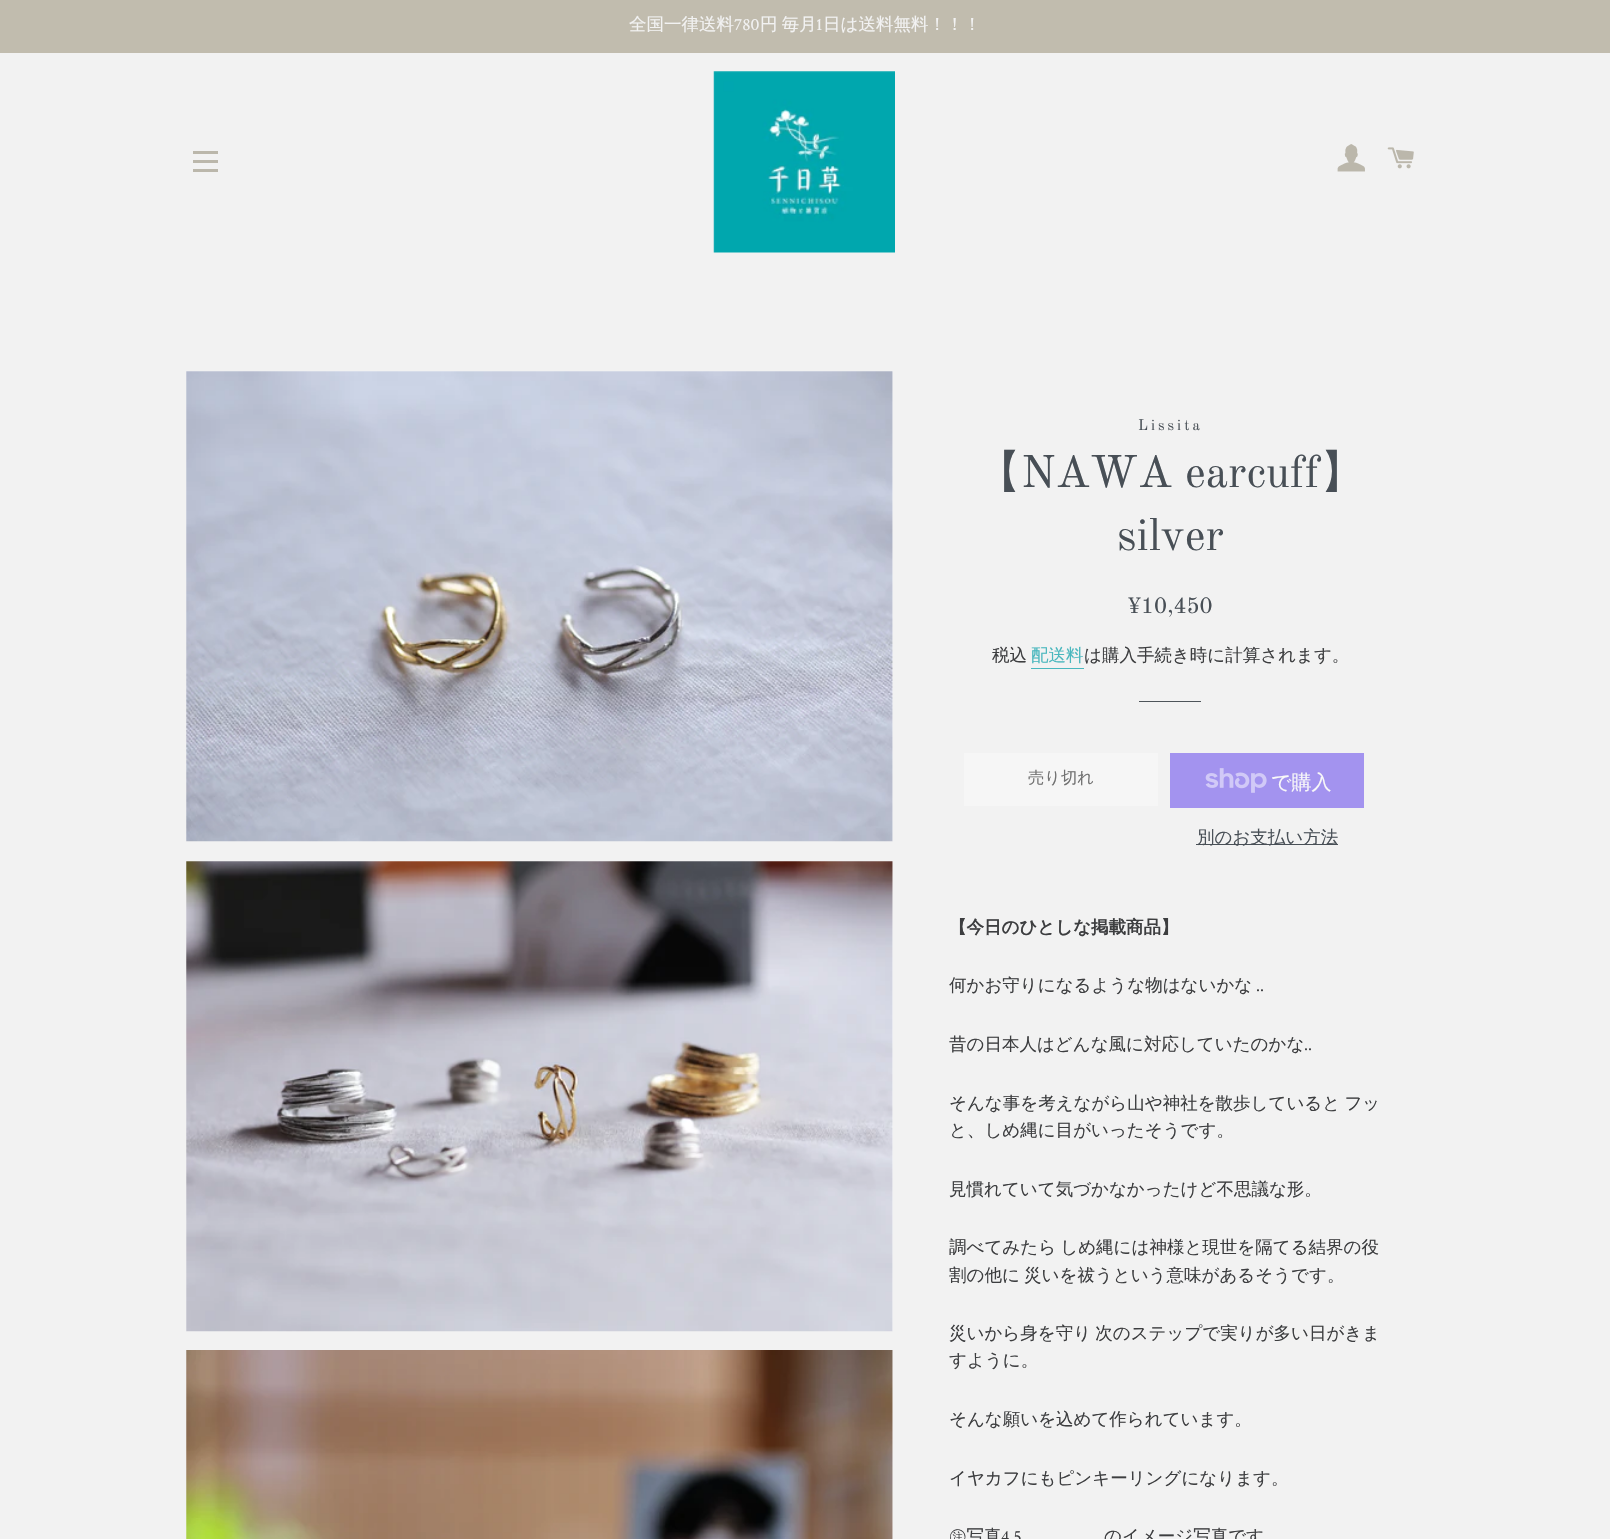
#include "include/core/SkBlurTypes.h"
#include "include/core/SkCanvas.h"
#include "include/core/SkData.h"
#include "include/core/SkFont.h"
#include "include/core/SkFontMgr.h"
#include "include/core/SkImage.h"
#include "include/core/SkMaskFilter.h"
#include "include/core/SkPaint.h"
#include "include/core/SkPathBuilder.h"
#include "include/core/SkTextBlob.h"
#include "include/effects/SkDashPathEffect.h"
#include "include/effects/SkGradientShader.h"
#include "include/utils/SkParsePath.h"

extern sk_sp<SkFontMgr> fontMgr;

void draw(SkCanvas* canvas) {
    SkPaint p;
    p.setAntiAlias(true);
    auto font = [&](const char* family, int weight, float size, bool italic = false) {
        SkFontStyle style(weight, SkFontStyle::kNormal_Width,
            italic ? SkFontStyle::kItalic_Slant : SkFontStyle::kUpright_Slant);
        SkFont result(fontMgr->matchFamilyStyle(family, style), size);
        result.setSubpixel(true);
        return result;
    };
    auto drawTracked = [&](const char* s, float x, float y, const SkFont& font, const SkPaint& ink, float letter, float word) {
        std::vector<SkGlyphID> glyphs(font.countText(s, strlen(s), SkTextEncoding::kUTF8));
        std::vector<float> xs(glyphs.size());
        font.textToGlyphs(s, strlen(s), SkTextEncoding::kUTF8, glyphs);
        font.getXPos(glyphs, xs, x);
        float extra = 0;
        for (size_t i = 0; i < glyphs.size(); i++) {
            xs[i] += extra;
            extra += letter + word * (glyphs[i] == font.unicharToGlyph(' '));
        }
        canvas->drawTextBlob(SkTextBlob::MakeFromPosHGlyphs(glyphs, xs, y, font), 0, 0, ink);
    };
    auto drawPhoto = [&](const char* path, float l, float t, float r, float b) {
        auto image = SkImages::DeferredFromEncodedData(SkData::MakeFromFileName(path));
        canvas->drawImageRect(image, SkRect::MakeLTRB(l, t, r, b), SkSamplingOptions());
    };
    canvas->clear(0xFFF2F2F2);
    p.setColor(0xFFC1BCAE);
    canvas->drawRect(SkRect::MakeLTRB(0, 0, 1610, 53), p);
    auto font1 = font("WenQuanYi Zen Hei", 500, 17.5f);
    p.setColor(0xFFF2F2F2);
    canvas->drawString("全国一律送料", 629, 30, font1, p);
    auto font2 = font("Crimson Text", 400, 17.5f);
    canvas->drawString("780", 734, 30, font2, p);
    drawTracked("円 毎月", 760, 30, font1, p, 0, -1);
    canvas->drawString("1", 816, 30, font2, p);
    canvas->drawString("日は送料無料！！！", 823, 30, font1, p);
    {
        const struct { float l, t, r, b; SkColor color; } items[] = {
            {193, 151, 218, 154, 0xFFBBB7AB},
            {193, 160, 218, 163, 0xFFBBB7AB},
            {193, 169, 218, 172, 0xFFBBB7AB},
        };
        for (auto [l, t, r, b, color] : items) {
            p.setColor(color);
            canvas->drawRect(SkRect::MakeLTRB(l, t, r, b), p);
        }
    }
    drawPhoto("media/1.png", 713, 71, 895, 253);
    drawPhoto("media/2.png", 1337, 144, 1365, 172);
    drawPhoto("media/3.png", 1387, 147, 1414, 169);
    p.setColor(0xFFFAFAFA);
    canvas->drawRect(SkRect::MakeLTRB(186, 371, 893, 841), p);
    drawPhoto("media/4.png", 186, 371, 893, 842);
    canvas->drawRect(SkRect::MakeLTRB(186, 861, 893, 1331), p);
    drawPhoto("media/5.png", 186, 861, 893, 1332);
    canvas->drawRect(SkRect::MakeLTRB(186, 1350, 893, 1539), p);
    drawPhoto("media/6.png", 186, 1350, 893, 1539);
    auto font3 = font("Old Standard TT", 400, 15);
    p.setColor(0xFF484F56);
    drawTracked("Lissita", 1138, 430, font3, p, 3, 0);
    auto font4 = font("WenQuanYi Zen Hei", 500, 45);
    canvas->drawString("【", 976, 487, font4, p);
    auto font5 = font("Old Standard TT", 400, 45);
    canvas->drawString("NAWA earcuff", 1021, 487, font5, p);
    canvas->drawString("】", 1320, 487, font4, p);
    canvas->drawString("silver", 1117, 550, font5, p);
    auto font6 = font("Old Standard TT", 400, 22.5f);
    canvas->drawString("¥10,450", 1128, 613, font6, p);
    p.setColor(0xFF3D3E40);
    canvas->drawString("税込", 992, 661, font1, p);
    p.setColor(0xFF4AB7BE);
    canvas->drawString("配送料", 1031, 661, font1, p);
    canvas->drawRect(SkRect::MakeLTRB(1031, 668, 1084, 669), p);
    p.setColor(0xFF3D3E40);
    canvas->drawString("は購入手続き時に計算されます。", 1084, 661, font1, p);
    p.setColor(0xFF4E555A);
    canvas->drawRect(SkRect::MakeLTRB(1139, 701, 1201, 702), p);
    p.setColor(0xFFF6F6F6);
    canvas->drawRect(SkRect::MakeLTRB(964, 753, 1158, 806), p);
    auto font7 = font("WenQuanYi Zen Hei", 500, 16.25f);
    p.setColor(0xFF717171);
    canvas->drawString("売り切れ", 1028, 783, font7, p);
    p.setColor(0xFFA393EF);
    canvas->drawRect(SkRect::MakeLTRB(1170, 753, 1364, 808), p);
    drawPhoto("media/7.png", 1205, 768, 1267, 793);
    auto font8 = font("WenQuanYi Zen Hei", 500, 20);
    p.setColor(0xFFF9F9F9);
    canvas->drawString("で購入", 1271, 789, font8, p);
    p.setColor(0xFF484F56);
    canvas->drawRect(SkRect::MakeLTRB(1196, 844, 1338, 845), p);
    canvas->drawString("別のお支払い方法", 1197, 843, font1, p);
    auto font9 = font("WenQuanYi Zen Hei", 700, 17.5f);
    p.setColor(0xFF3D3E40);
    canvas->drawString("【今日のひとしな掲載商品】", 949, 933, font9, p);
    canvas->drawString("何かお守りになるような物はないかな", 949, 991, font1, p);
    canvas->drawString("..", 1256, 991, font2, p);
    canvas->drawString("昔の日本人はどんな風に対応していたのかな", 949, 1050, font1, p);
    canvas->drawString("..", 1304, 1050, font2, p);
    drawTracked("そんな事を考えながら山や神社を散歩していると フッ", 949, 1109, font1, p, 0, -1);
    canvas->drawString("と、しめ縄に目がいったそうです。", 949, 1136, font1, p);
    canvas->drawString("見慣れていて気づかなかったけど不思議な形。", 949, 1195, font1, p);
    {
        const struct { const char* s; float x, y; } items[] = {
            {"調べてみたら しめ縄には神様と現世を隔てる結界の役", 949, 1253},
            {"割の他に 災いを祓うという意味があるそうです。", 949, 1281},
            {"災いから身を守り 次のステップで実りが多い日がきま", 949, 1339},
        };
        for (auto [s, x, y] : items) {
            drawTracked(s, x, y, font1, p, 0, -1);
        }
    }
    {
        const struct { const char* s; float x, y; } items[] = {
            {"すように。", 949, 1366},
            {"そんな願いを込めて作られています。", 949, 1425},
            {"イヤカフにもピンキーリングになります。", 949, 1484},
            {"㊟写真", 949, 1542},
        };
        for (auto [s, x, y] : items) {
            canvas->drawString(s, x, y, font1, p);
        }
    }
    canvas->drawString("4,5", 1001, 1542, font2, p);
    canvas->drawString("のイメージ写真です", 1104, 1542, font1, p);
}
